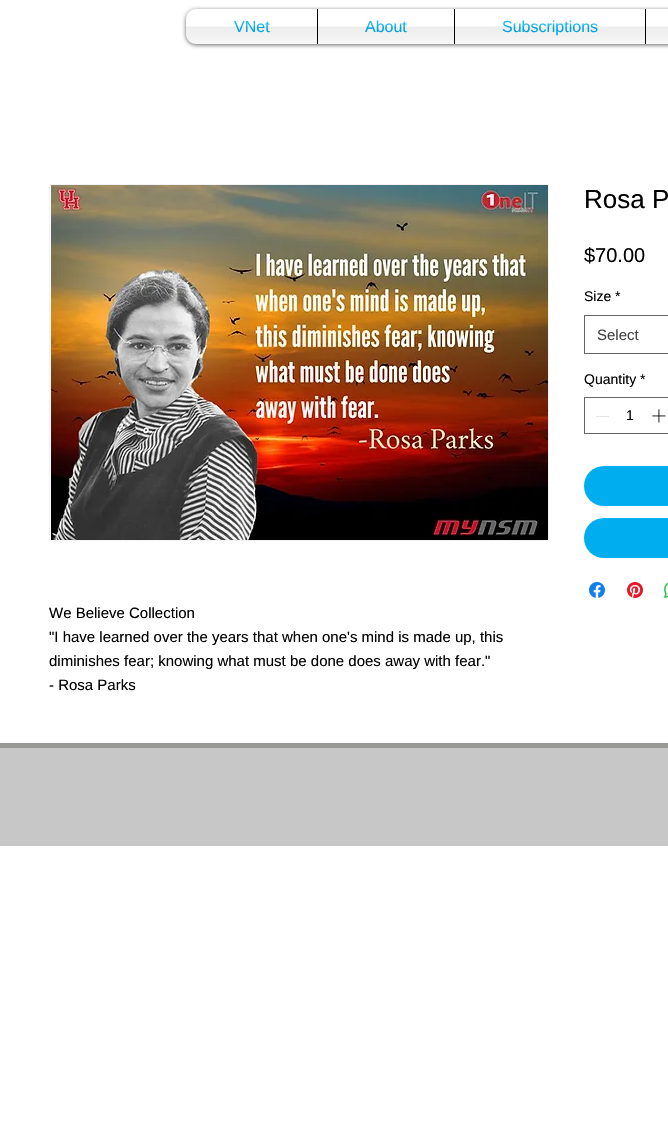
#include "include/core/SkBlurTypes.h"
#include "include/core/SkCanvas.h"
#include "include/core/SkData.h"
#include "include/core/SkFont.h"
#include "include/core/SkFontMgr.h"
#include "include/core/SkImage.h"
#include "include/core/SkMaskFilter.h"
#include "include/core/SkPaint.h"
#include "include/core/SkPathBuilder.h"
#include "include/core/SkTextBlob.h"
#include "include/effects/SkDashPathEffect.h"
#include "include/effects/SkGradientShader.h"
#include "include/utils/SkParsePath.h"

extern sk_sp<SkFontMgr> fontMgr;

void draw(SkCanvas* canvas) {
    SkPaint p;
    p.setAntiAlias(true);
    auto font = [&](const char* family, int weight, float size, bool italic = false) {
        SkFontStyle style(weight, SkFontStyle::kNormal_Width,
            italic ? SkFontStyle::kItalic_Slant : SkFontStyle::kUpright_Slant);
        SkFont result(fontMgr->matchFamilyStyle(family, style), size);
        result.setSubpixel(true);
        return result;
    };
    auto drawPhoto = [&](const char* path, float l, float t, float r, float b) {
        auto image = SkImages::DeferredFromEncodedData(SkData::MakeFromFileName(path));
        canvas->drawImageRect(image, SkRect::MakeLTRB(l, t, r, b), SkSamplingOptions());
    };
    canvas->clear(0xFFFFFFFF);
    p.setColor(0x99000000);
    p.setMaskFilter(SkMaskFilter::MakeBlur(kNormal_SkBlurStyle, 2));
    canvas->drawRoundRect(SkRect::MakeLTRB(186, 10, 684, 45), 10, 10, p);
    p.setMaskFilter(nullptr);
    drawPhoto("media/1.png", 186, 34, 196, 44);
    p.setColor(0xFFFFFFFF);
    canvas->drawPath(SkPathBuilder().moveTo(196, 9).lineTo(317, 9).lineTo(317, 44).lineTo(196, 44).cubicTo(190.5f, 44, 186, 39.5f, 186, 34).lineTo(186, 19).cubicTo(186, 13.5f, 190.5f, 9, 196, 9).close().detach(), p);
    auto font1 = font("Liberation Sans", 400, 16);
    p.setColor(0xFF00ADEF);
    canvas->drawString("VNet", 234, 32, font1, p);
    drawPhoto("media/2.png", 186, 21, 317, 44);
    p.setColor(0xFFFFFFFF);
    canvas->drawRect(SkRect::MakeLTRB(318, 9, 454, 44), p);
    p.setColor(0xFF000000);
    canvas->drawRect(SkRect::MakeLTRB(317, 9, 318, 44), p);
    p.setColor(0xFF00ADEF);
    canvas->drawString("About", 365, 32, font1, p);
    drawPhoto("media/3.png", 318, 20, 454, 44);
    p.setColor(0xFFFFFFFF);
    canvas->drawRect(SkRect::MakeLTRB(455, 9, 645, 44), p);
    p.setColor(0xFF000000);
    canvas->drawRect(SkRect::MakeLTRB(454, 9, 455, 44), p);
    p.setColor(0xFF00ADEF);
    canvas->drawString("Subscriptions", 502, 32, font1, p);
    drawPhoto("media/4.png", 455, 20, 645, 44);
    p.setColor(0xFFFFFFFF);
    canvas->drawRect(SkRect::MakeLTRB(646, 9, 668, 44), p);
    p.setColor(0xFF000000);
    canvas->drawRect(SkRect::MakeLTRB(645, 9, 646, 44), p);
    drawPhoto("media/5.png", 646, 26, 668, 44);
    auto font2 = font("Liberation Sans", 400, 26);
    canvas->drawString("Rosa P", 584, 208, font2, p);
    auto font3 = font("Liberation Sans", 400, 20);
    canvas->drawString("$70.00", 584, 262, font3, p);
    auto font4 = font("Liberation Sans", 400, 14);
    canvas->drawString("Size *", 584, 301, font4, p);
    p.setStyle(SkPaint::kStroke_Style);
    p.setStrokeWidth(1);
    p.setColor(0xFF666666);
    canvas->drawRect(SkRect::MakeLTRB(584.5f, 315.5f, 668.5f, 353.5f), p);
    auto font5 = font("Liberation Sans", 400, 15);
    p.setStyle(SkPaint::kFill_Style);
    p.setColor(0xFF444444);
    canvas->drawString("Select", 597, 340, font5, p);
    p.setColor(0xFF000000);
    canvas->drawString("Quantity *", 584, 384, font4, p);
    p.setStyle(SkPaint::kStroke_Style);
    p.setColor(0xFF666666);
    canvas->drawRect(SkRect::MakeLTRB(584.5f, 397.5f, 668.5f, 433.5f), p);
    p.setStyle(SkPaint::kFill_Style);
    p.setColor(0xFFE3E3E3);
    canvas->drawRect(SkRect::MakeLTRB(596, 416, 609, 417), p);
    p.setColor(0xFF000000);
    canvas->drawString("1", 626, 420, font4, p);
    drawPhoto("media/6.png", 652, 409, 666, 423);
    p.setColor(0xFF00ADEF);
    canvas->drawRoundRect(SkRect::MakeLTRB(584, 466, 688, 506), 20, 20, p);
    canvas->drawRoundRect(SkRect::MakeLTRB(584, 518, 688, 558), 20, 20, p);
    drawPhoto("media/7.png", 589, 582, 605, 598);
    drawPhoto("media/8.png", 627, 582, 643, 598);
    drawPhoto("media/9.png", 664, 582, 668, 598);
    p.setStyle(SkPaint::kStroke_Style);
    p.setColor(0xFFF2F2F2);
    canvas->drawRect(SkRect::MakeLTRB(49.5f, 184.5f, 548.5f, 540.5f), p);
    drawPhoto("media/10.png", 51, 185, 548, 540);
    p.setStyle(SkPaint::kFill_Style);
    p.setColor(0xFF000000);
    {
        const struct { const char* s; float x, y; } items[] = {
            {"We Believe Collection", 49, 618},
            {"\"I have learned over the years that when one's mind is made up, this", 49, 642},
            {"diminishes fear; knowing what must be done does away with fear.\"", 49, 666},
            {"- Rosa Parks", 49, 690},
        };
        for (auto [s, x, y] : items) {
            canvas->drawString(s, x, y, font5, p);
        }
    }
    p.setColor(0xFFC7C7C7);
    canvas->drawRect(SkRect::MakeLTRB(0, 748, 668, 846), p);
    p.setColor(0xFF999997);
    canvas->drawRect(SkRect::MakeLTRB(0, 743, 668, 748), p);
}
